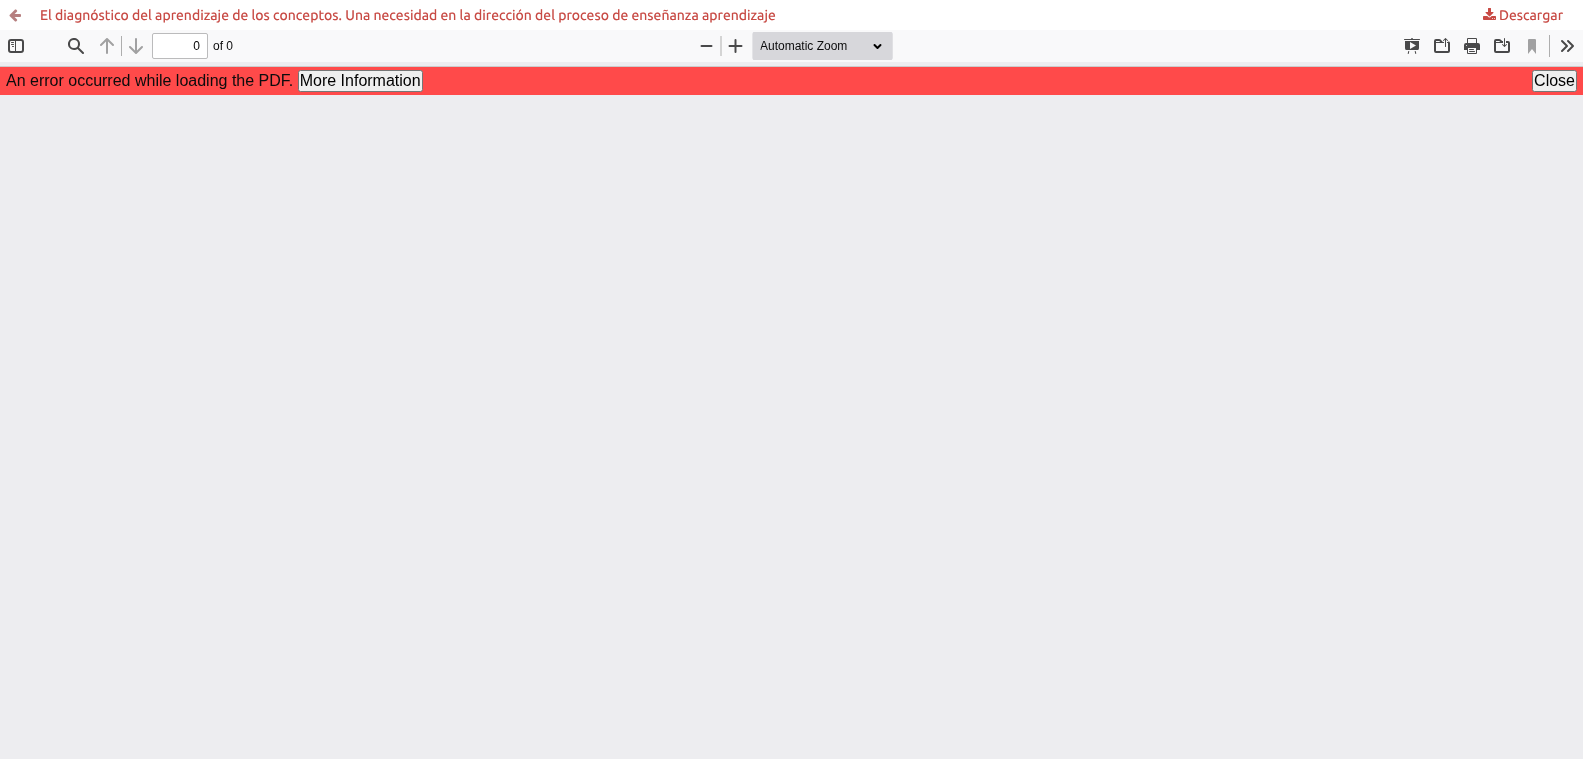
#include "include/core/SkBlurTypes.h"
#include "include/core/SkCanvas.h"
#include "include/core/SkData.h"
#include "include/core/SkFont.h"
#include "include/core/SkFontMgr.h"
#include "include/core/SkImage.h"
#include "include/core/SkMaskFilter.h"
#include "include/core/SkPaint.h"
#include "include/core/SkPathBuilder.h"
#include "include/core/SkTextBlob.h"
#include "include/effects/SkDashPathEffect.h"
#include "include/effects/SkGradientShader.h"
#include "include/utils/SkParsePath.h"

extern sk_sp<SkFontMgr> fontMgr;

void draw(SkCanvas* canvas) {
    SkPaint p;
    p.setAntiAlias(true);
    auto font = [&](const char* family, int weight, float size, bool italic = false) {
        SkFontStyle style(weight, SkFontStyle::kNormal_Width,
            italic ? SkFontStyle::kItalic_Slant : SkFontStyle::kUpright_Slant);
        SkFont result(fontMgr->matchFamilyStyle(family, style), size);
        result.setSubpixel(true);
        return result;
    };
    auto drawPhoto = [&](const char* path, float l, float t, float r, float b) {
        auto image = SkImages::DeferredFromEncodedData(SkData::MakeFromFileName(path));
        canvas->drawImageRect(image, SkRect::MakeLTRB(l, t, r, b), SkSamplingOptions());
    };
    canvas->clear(0xFFFFFFFF);
    drawPhoto("media/1.png", 9, 9, 21, 22);
    auto font1 = font("Ubuntu", 400, 14);
    p.setColor(0xFFC84A44);
    canvas->drawString("El diagnóstico del aprendizaje de los conceptos. Una necesidad en la dirección del proceso de enseñanza aprendizaje", 40, 20, font1, p);
    drawPhoto("media/2.png", 1483, 8, 1496, 20);
    canvas->drawString("Descargar", 1499, 20, font1, p);
    drawPhoto("media/3.png", 0, 30, 1583, 759);
}
